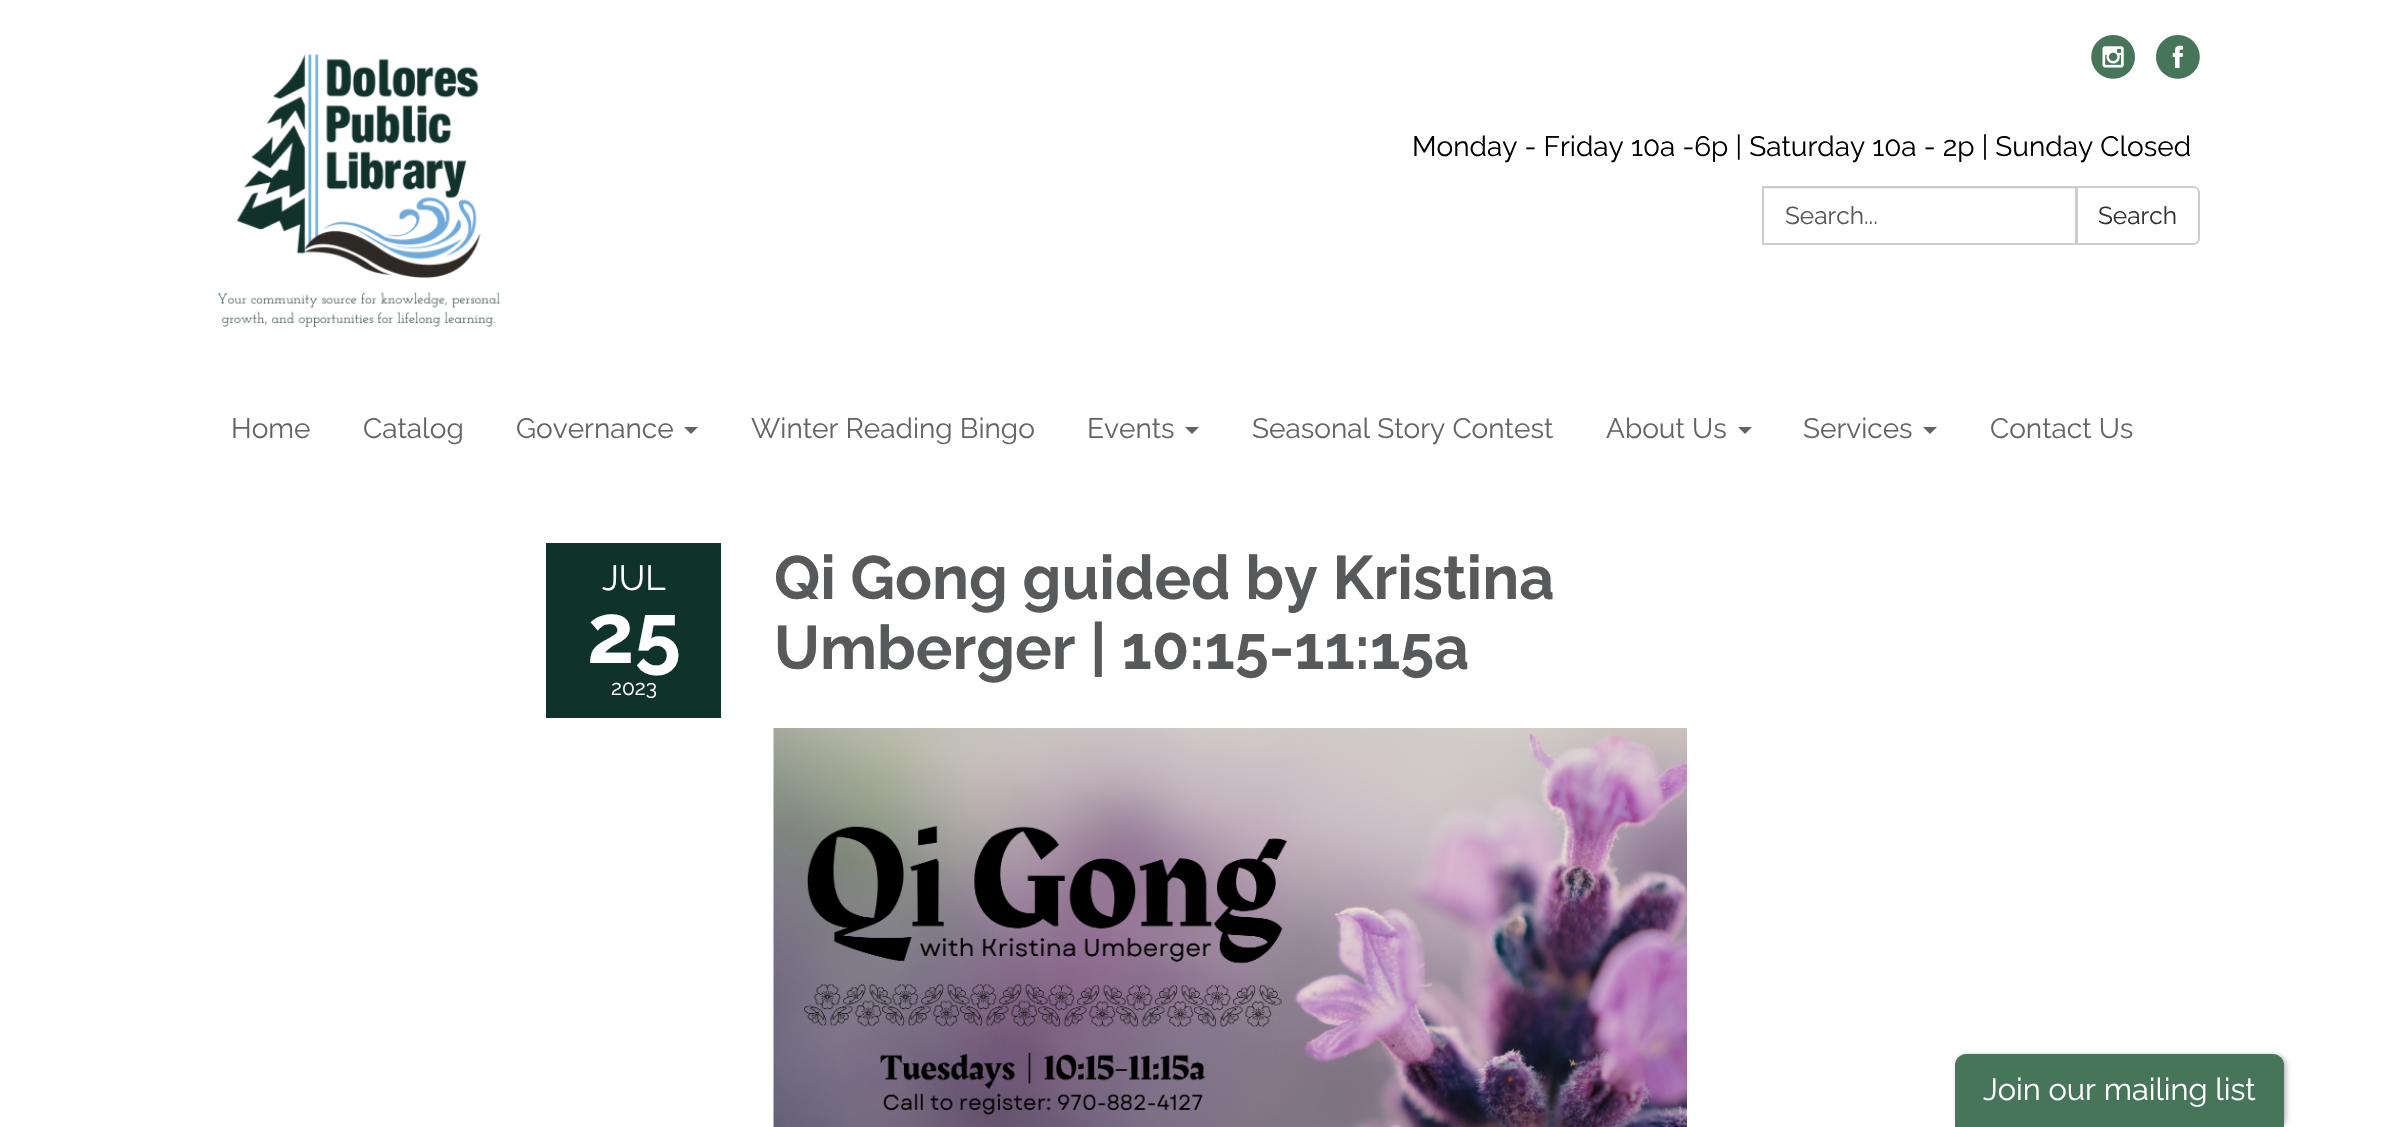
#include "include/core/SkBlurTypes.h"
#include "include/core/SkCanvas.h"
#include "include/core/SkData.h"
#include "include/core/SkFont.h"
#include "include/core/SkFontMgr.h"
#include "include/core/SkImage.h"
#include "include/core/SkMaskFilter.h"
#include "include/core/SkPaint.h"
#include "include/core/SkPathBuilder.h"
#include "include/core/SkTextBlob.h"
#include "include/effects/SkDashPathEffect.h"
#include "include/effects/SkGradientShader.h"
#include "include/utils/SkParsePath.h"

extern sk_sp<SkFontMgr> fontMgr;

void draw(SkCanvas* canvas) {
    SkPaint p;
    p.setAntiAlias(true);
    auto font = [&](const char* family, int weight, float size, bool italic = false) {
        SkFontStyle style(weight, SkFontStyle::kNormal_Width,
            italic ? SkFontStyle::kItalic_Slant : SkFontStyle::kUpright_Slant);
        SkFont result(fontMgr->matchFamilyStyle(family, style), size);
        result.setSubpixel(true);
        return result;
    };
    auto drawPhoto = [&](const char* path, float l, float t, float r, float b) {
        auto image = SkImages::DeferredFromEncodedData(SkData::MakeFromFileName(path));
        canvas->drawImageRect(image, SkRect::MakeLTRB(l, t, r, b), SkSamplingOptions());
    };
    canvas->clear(0xFFFFFFFF);
    drawPhoto("media/1.png", 217, 54, 500, 327);
    drawPhoto("media/2.png", 2091, 35, 2135, 79);
    drawPhoto("media/3.png", 2156, 35, 2200, 79);
    auto font1 = font("Raleway", 400, 28);
    p.setColor(0xFF000000);
    canvas->drawString("Monday - Friday 10a -6p | Saturday 10a - 2p | Sunday Closed", 1412, 156, font1, p);
    p.setColor(0xFFECECEC);
    canvas->drawRect(SkRect::MakeLTRB(1764, 188, 2076, 189), p);
    p.setStyle(SkPaint::kStroke_Style);
    p.setStrokeWidth(2);
    p.setColor(0xFFCCCCCC);
    canvas->drawRect(SkRect::MakeLTRB(1763, 187, 2076, 244), p);
    auto font2 = font("Raleway", 400, 24.5f);
    p.setStyle(SkPaint::kFill_Style);
    p.setColor(0xFF58595B);
    canvas->drawString("Search...", 1785, 224, font2, p);
    p.setColor(0xFFFFFFFF);
    canvas->drawPath(SkPathBuilder().moveTo(2077, 187).lineTo(2193, 187).cubicTo(2196.5f, 187, 2199, 189.5f, 2199, 193).lineTo(2199, 238).cubicTo(2199, 241.5f, 2196.5f, 244, 2193, 244).lineTo(2077, 244).close().detach(), p);
    p.setStyle(SkPaint::kStroke_Style);
    p.setColor(0xFFCCCCCC);
    canvas->drawPath(SkPathBuilder().moveTo(2077, 187).lineTo(2193, 187).cubicTo(2196.5f, 187, 2199, 189.5f, 2199, 193).lineTo(2199, 238).cubicTo(2199, 241.5f, 2196.5f, 244, 2193, 244).lineTo(2077, 244).close().detach(), p);
    p.setStyle(SkPaint::kFill_Style);
    p.setColor(0xFF333333);
    canvas->drawString("Search", 2098, 224, font2, p);
    p.setColor(0xFF646464);
    {
        const struct { const char* s; float x, y; } items[] = {
            {"Home", 231, 438},
            {"Catalog", 363, 438},
            {"Governance", 516, 438},
        };
        for (auto [s, x, y] : items) {
            canvas->drawString(s, x, y, font1, p);
        }
    }
    canvas->drawPath(SkPathBuilder().moveTo(684, 427).lineTo(698, 427).lineTo(691, 434).close().detach(), p);
    canvas->drawString("Winter Reading Bingo", 751, 438, font1, p);
    canvas->drawString("Events", 1087, 438, font1, p);
    canvas->drawPath(SkPathBuilder().moveTo(1185, 427).lineTo(1199, 427).lineTo(1192, 434).close().detach(), p);
    canvas->drawString("Seasonal Story Contest", 1252, 438, font1, p);
    canvas->drawString("About Us", 1606, 438, font1, p);
    canvas->drawPath(SkPathBuilder().moveTo(1738, 427).lineTo(1752, 427).lineTo(1745, 434).close().detach(), p);
    canvas->drawString("Services", 1803, 438, font1, p);
    canvas->drawPath(SkPathBuilder().moveTo(1923, 427).lineTo(1937, 427).lineTo(1930, 434).close().detach(), p);
    canvas->drawString("Contact Us", 1990, 438, font1, p);
    p.setColor(0xFF0F322A);
    canvas->drawRect(SkRect::MakeLTRB(546, 543, 721, 718), p);
    auto font3 = font("Raleway", 400, 35);
    p.setColor(0xFFFFFFFF);
    canvas->drawString("JUL", 602, 590, font3, p);
    auto font4 = font("Raleway", 700, 84);
    canvas->drawString("25", 587, 663, font4, p);
    auto font5 = font("Raleway", 400, 21);
    canvas->drawString("2023", 611, 695, font5, p);
    auto font6 = font("Raleway", 700, 61.25f);
    p.setColor(0xFF58595B);
    canvas->drawString("Qi Gong guided by Kristina", 774, 599, font6, p);
    canvas->drawString("Umberger | 10:15-11:15a", 774, 669, font6, p);
    drawPhoto("media/4.png", 773, 728, 1687, 1127);
    p.setColor(0x4D000000);
    p.setMaskFilter(SkMaskFilter::MakeBlur(kNormal_SkBlurStyle, 2.5f));
    canvas->drawRoundRect(SkRect::MakeLTRB(1957, 1055, 2286, 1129), 11, 11, p);
    p.setMaskFilter(nullptr);
    p.setColor(0xFF46755A);
    canvas->drawPath(SkPathBuilder().moveTo(1966, 1054).lineTo(2273, 1054).cubicTo(2279, 1054, 2284, 1059, 2284, 1065).lineTo(2284, 1127).lineTo(1955, 1127).lineTo(1955, 1065).cubicTo(1955, 1059, 1960, 1054, 1966, 1054).close().detach(), p);
    auto font7 = font("Raleway", 400, 30.75f);
    p.setColor(0xFFFFFFFF);
    canvas->drawString("Join our mailing list", 1983, 1100, font7, p);
}
